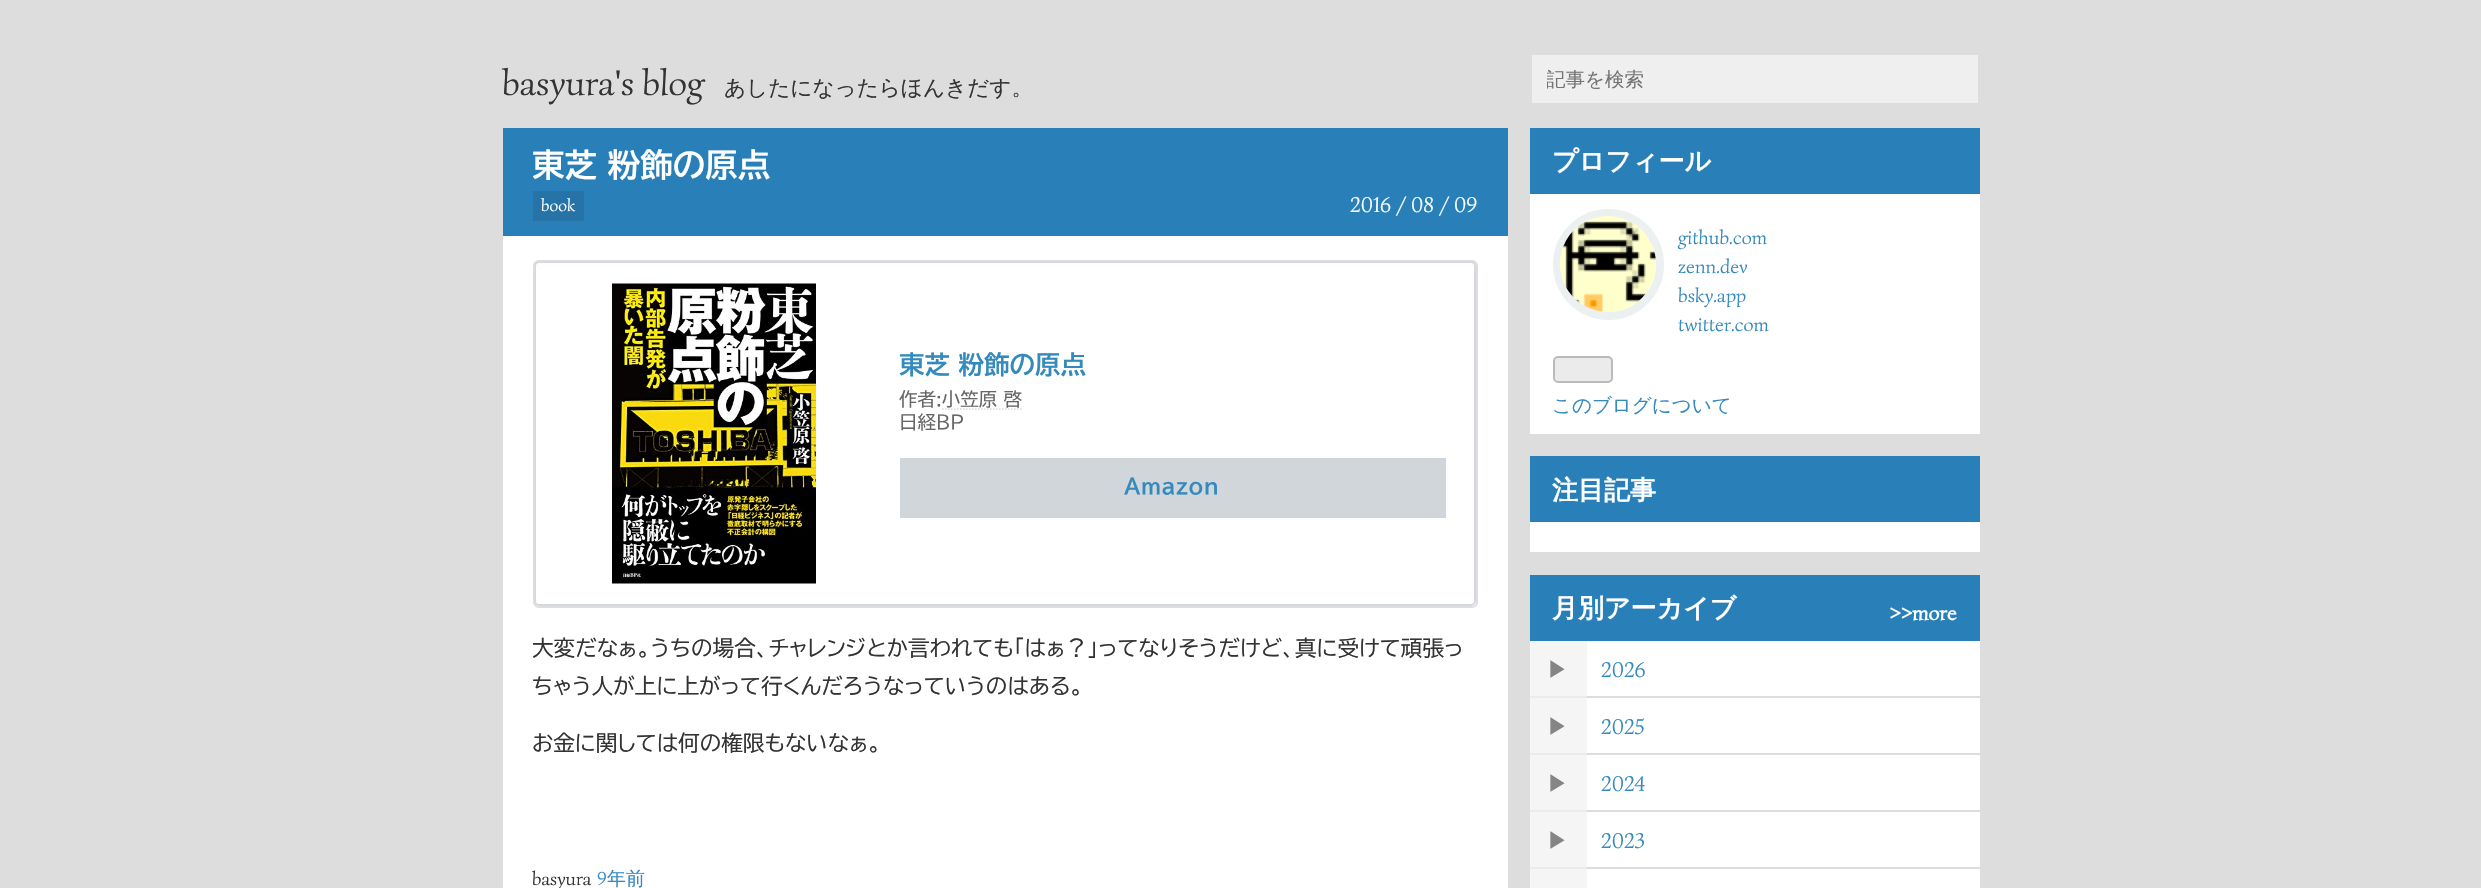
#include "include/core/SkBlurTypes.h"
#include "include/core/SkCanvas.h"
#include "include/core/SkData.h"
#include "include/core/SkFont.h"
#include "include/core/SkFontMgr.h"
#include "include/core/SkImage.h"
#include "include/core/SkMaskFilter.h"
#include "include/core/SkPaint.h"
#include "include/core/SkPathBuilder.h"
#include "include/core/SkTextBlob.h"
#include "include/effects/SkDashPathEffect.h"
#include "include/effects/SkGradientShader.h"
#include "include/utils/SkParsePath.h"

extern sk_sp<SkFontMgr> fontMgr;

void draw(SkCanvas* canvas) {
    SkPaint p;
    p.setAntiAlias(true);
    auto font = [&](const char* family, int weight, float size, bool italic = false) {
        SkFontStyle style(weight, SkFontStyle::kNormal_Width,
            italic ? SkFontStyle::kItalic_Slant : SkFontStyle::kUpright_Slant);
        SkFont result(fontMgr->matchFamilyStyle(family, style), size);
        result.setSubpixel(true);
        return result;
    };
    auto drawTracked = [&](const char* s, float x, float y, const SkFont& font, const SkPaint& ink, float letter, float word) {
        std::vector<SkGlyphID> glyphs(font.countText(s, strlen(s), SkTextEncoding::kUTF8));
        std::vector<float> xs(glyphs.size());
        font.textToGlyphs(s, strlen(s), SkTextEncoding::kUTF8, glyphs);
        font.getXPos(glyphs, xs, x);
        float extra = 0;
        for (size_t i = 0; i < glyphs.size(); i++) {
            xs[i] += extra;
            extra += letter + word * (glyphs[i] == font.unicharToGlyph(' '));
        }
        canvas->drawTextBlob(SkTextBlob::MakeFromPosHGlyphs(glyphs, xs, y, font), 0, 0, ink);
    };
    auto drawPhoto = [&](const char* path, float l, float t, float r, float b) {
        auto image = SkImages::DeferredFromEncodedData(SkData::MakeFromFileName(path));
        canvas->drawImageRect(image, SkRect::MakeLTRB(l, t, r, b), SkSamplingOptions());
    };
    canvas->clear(0xFFDDDDDD);
    auto font1 = font("Simonetta", 400, 36);
    p.setColor(0xFF333333);
    canvas->drawString("basyura's blog", 502, 95, font1, p);
    auto font2 = font("WenQuanYi Zen Hei", 500, 21.6f);
    canvas->drawString("あしたになったらほんきだす。", 724, 95, font2, p);
    p.setColor(0xFFFFFFFF);
    canvas->drawRect(SkRect::MakeLTRB(503, 236, 1508, 888), p);
    p.setColor(0xFF2980B9);
    canvas->drawRect(SkRect::MakeLTRB(503, 128, 1508, 236), p);
    auto font3 = font("BIZ UDPGothic", 700, 32.5f);
    p.setColor(0xFFFFFFFF);
    canvas->drawString("東芝 粉飾の原点", 532, 177, font3, p);
    p.setColor(0xFF2573A7);
    canvas->drawRect(SkRect::MakeLTRB(533, 191, 584, 221), p);
    auto font4 = font("Simonetta", 400, 17);
    p.setColor(0xFFFFFFFF);
    canvas->drawString("book", 541, 211, font4, p);
    auto font5 = font("Simonetta", 400, 21.6f);
    canvas->drawString("2016 / 08 / 09", 1350, 212, font5, p);
    p.setStyle(SkPaint::kStroke_Style);
    p.setStrokeWidth(2);
    p.setColor(0xFFD2D8DD);
    canvas->drawRoundRect(SkRect::MakeLTRB(535, 262, 1475, 605), 4, 4, p);
    p.setColor(0xFFDDDDDD);
    canvas->drawRoundRect(SkRect::MakeLTRB(534, 261, 1477, 607), 5, 5, p);
    drawPhoto("media/1.png", 612, 283, 816, 584);
    auto font6 = font("BIZ UDPGothic", 700, 25.5f);
    p.setStyle(SkPaint::kFill_Style);
    p.setColor(0xFF3489BD);
    canvas->drawString("東芝 粉飾の原点", 899, 374, font6, p);
    auto font7 = font("BIZ UDPGothic", 400, 18.5f);
    p.setColor(0xFF666666);
    canvas->drawString("作者:小笠原 啓", 899, 406, font7, p);
    p.setStyle(SkPaint::kStroke_Style);
    p.setStrokeWidth(1.5f);
    p.setColor(0xFFD9D9D9);
    p.setPathEffect(SkDashPathEffect::Make({{1.5f, 1.5f}}, 0));
    canvas->drawPath(SkPathBuilder().moveTo(942, 409).lineTo(1023, 409).detach(), p);
    p.setPathEffect(nullptr);
    p.setStyle(SkPaint::kFill_Style);
    p.setColor(0xFF666666);
    canvas->drawString("日経BP", 899, 429, font7, p);
    p.setColor(0xFFD1D6DA);
    canvas->drawRect(SkRect::MakeLTRB(900, 458, 1446, 518), p);
    auto font8 = font("BIZ UDPGothic", 700, 21);
    p.setColor(0xFF3489BD);
    drawTracked("Amazon", 1124, 494, font8, p, 0.5f, 0);
    auto font9 = font("BIZ UDPGothic", 400, 21.6f);
    p.setColor(0xFF333333);
    {
        const struct { const char* s; float x, y; } items[] = {
            {"大変だなぁ。うちの場合、チャレンジとか言われても「はぁ？」ってなりそうだけど、真に受けて頑張っ", 532, 656},
            {"ちゃう人が上に上がって行くんだろうなっていうのはある。", 532, 694},
            {"お金に関しては何の権限もないなぁ。", 532, 751},
        };
        for (auto [s, x, y] : items) {
            canvas->drawString(s, x, y, font9, p);
        }
    }
    auto font10 = font("Simonetta", 400, 19);
    canvas->drawString("basyura", 532, 885, font10, p);
    p.setColor(0xFF3489BD);
    canvas->drawString("9", 597, 885, font10, p);
    auto font11 = font("WenQuanYi Zen Hei", 500, 19);
    canvas->drawString("年前", 607, 885, font11, p);
    p.setColor(0xFFEFEFEF);
    canvas->drawRect(SkRect::MakeLTRB(1532, 55, 1978, 103), p);
    canvas->save();
    canvas->clipRect(SkRect::MakeLTRB(1547, 68, 1964, 93));
    auto font12 = font("WenQuanYi Zen Hei", 500, 19.5f);
    p.setColor(0xFF757575);
    canvas->drawString("記事を検索", 1546, 86, font12, p);
    canvas->restore();
    p.setColor(0xFFFFFFFF);
    canvas->drawRect(SkRect::MakeLTRB(1530, 194, 1980, 434), p);
    p.setColor(0xFF2980B9);
    canvas->drawRect(SkRect::MakeLTRB(1530, 128, 1980, 194), p);
    auto font13 = font("WenQuanYi Zen Hei", 700, 26);
    p.setColor(0xFFFFFFFF);
    canvas->drawString("プロフィール", 1552, 170, font13, p);
    p.setStyle(SkPaint::kStroke_Style);
    p.setStrokeWidth(8);
    p.setColor(0xFFECF0F1);
    canvas->drawCircle(1608.5f, 264.5f, 51.5f, p);
    drawPhoto("media/2.png", 1560, 216, 1656, 312);
    auto font14 = font("Simonetta", 400, 19.5f);
    p.setStyle(SkPaint::kFill_Style);
    p.setColor(0xFF3489BD);
    {
        const struct { const char* s; float x, y; } items[] = {
            {"github.com", 1678, 244},
            {"zenn.dev", 1678, 273},
            {"bsky.app", 1678, 302},
            {"twitter.com", 1678, 331},
        };
        for (auto [s, x, y] : items) {
            canvas->drawString(s, x, y, font14, p);
        }
    }
    p.setColor(0xFFEBEBEB);
    canvas->drawRoundRect(SkRect::MakeLTRB(1554, 357, 1612, 382), 4, 4, p);
    p.setStyle(SkPaint::kStroke_Style);
    p.setStrokeWidth(2);
    p.setColor(0xFFBBBBBB);
    canvas->drawRoundRect(SkRect::MakeLTRB(1554, 357, 1612, 382), 4, 4, p);
    p.setStyle(SkPaint::kFill_Style);
    p.setColor(0xFF3489BD);
    canvas->drawString("このブログについて", 1552, 412, font12, p);
    p.setColor(0xFFFFFFFF);
    canvas->drawRect(SkRect::MakeLTRB(1530, 522, 1980, 552), p);
    p.setColor(0xFF2980B9);
    canvas->drawRect(SkRect::MakeLTRB(1530, 456, 1980, 522), p);
    p.setColor(0xFFFFFFFF);
    canvas->drawString("注目記事", 1552, 499, font13, p);
    canvas->drawRect(SkRect::MakeLTRB(1587, 641, 1980, 888), p);
    p.setColor(0xFF2980B9);
    canvas->drawRect(SkRect::MakeLTRB(1530, 575, 1980, 641), p);
    p.setColor(0xFFFFFFFF);
    canvas->drawString("月別アーカイブ", 1552, 617, font13, p);
    auto font15 = font("Simonetta", 700, 21);
    canvas->drawString(">>more", 1889, 620, font15, p);
    p.setColor(0xFFF5F5F5);
    canvas->drawRect(SkRect::MakeLTRB(1530, 641, 1587, 696), p);
    p.setColor(0xFFEBEBEB);
    canvas->drawRect(SkRect::MakeLTRB(1530, 696, 1587, 698), p);
    p.setColor(0xFF858585);
    canvas->drawString("▶", 1547, 677, font2, p);
    p.setColor(0xFFDDDDDD);
    canvas->drawRect(SkRect::MakeLTRB(1587, 696, 1980, 698), p);
    p.setColor(0xFF3489BD);
    canvas->drawString("2026", 1601, 677, font5, p);
    p.setColor(0xFFF5F5F5);
    canvas->drawRect(SkRect::MakeLTRB(1530, 698, 1587, 753), p);
    p.setColor(0xFFEBEBEB);
    canvas->drawRect(SkRect::MakeLTRB(1530, 753, 1587, 755), p);
    p.setColor(0xFF858585);
    canvas->drawString("▶", 1547, 734, font2, p);
    p.setColor(0xFFDDDDDD);
    canvas->drawRect(SkRect::MakeLTRB(1587, 753, 1980, 755), p);
    p.setColor(0xFF3489BD);
    canvas->drawString("2025", 1601, 734, font5, p);
    p.setColor(0xFFF5F5F5);
    canvas->drawRect(SkRect::MakeLTRB(1530, 755, 1587, 810), p);
    p.setColor(0xFFEBEBEB);
    canvas->drawRect(SkRect::MakeLTRB(1530, 810, 1587, 812), p);
    p.setColor(0xFF858585);
    canvas->drawString("▶", 1547, 791, font2, p);
    p.setColor(0xFFDDDDDD);
    canvas->drawRect(SkRect::MakeLTRB(1587, 810, 1980, 812), p);
    p.setColor(0xFF3489BD);
    canvas->drawString("2024", 1601, 791, font5, p);
    p.setColor(0xFFF5F5F5);
    canvas->drawRect(SkRect::MakeLTRB(1530, 812, 1587, 867), p);
    p.setColor(0xFFEBEBEB);
    canvas->drawRect(SkRect::MakeLTRB(1530, 867, 1587, 869), p);
    p.setColor(0xFF858585);
    canvas->drawString("▶", 1547, 848, font2, p);
    p.setColor(0xFFDDDDDD);
    canvas->drawRect(SkRect::MakeLTRB(1587, 867, 1980, 869), p);
    p.setColor(0xFF3489BD);
    canvas->drawString("2023", 1601, 848, font5, p);
    p.setColor(0xFFF5F5F5);
    canvas->drawRect(SkRect::MakeLTRB(1530, 869, 1587, 888), p);
}
